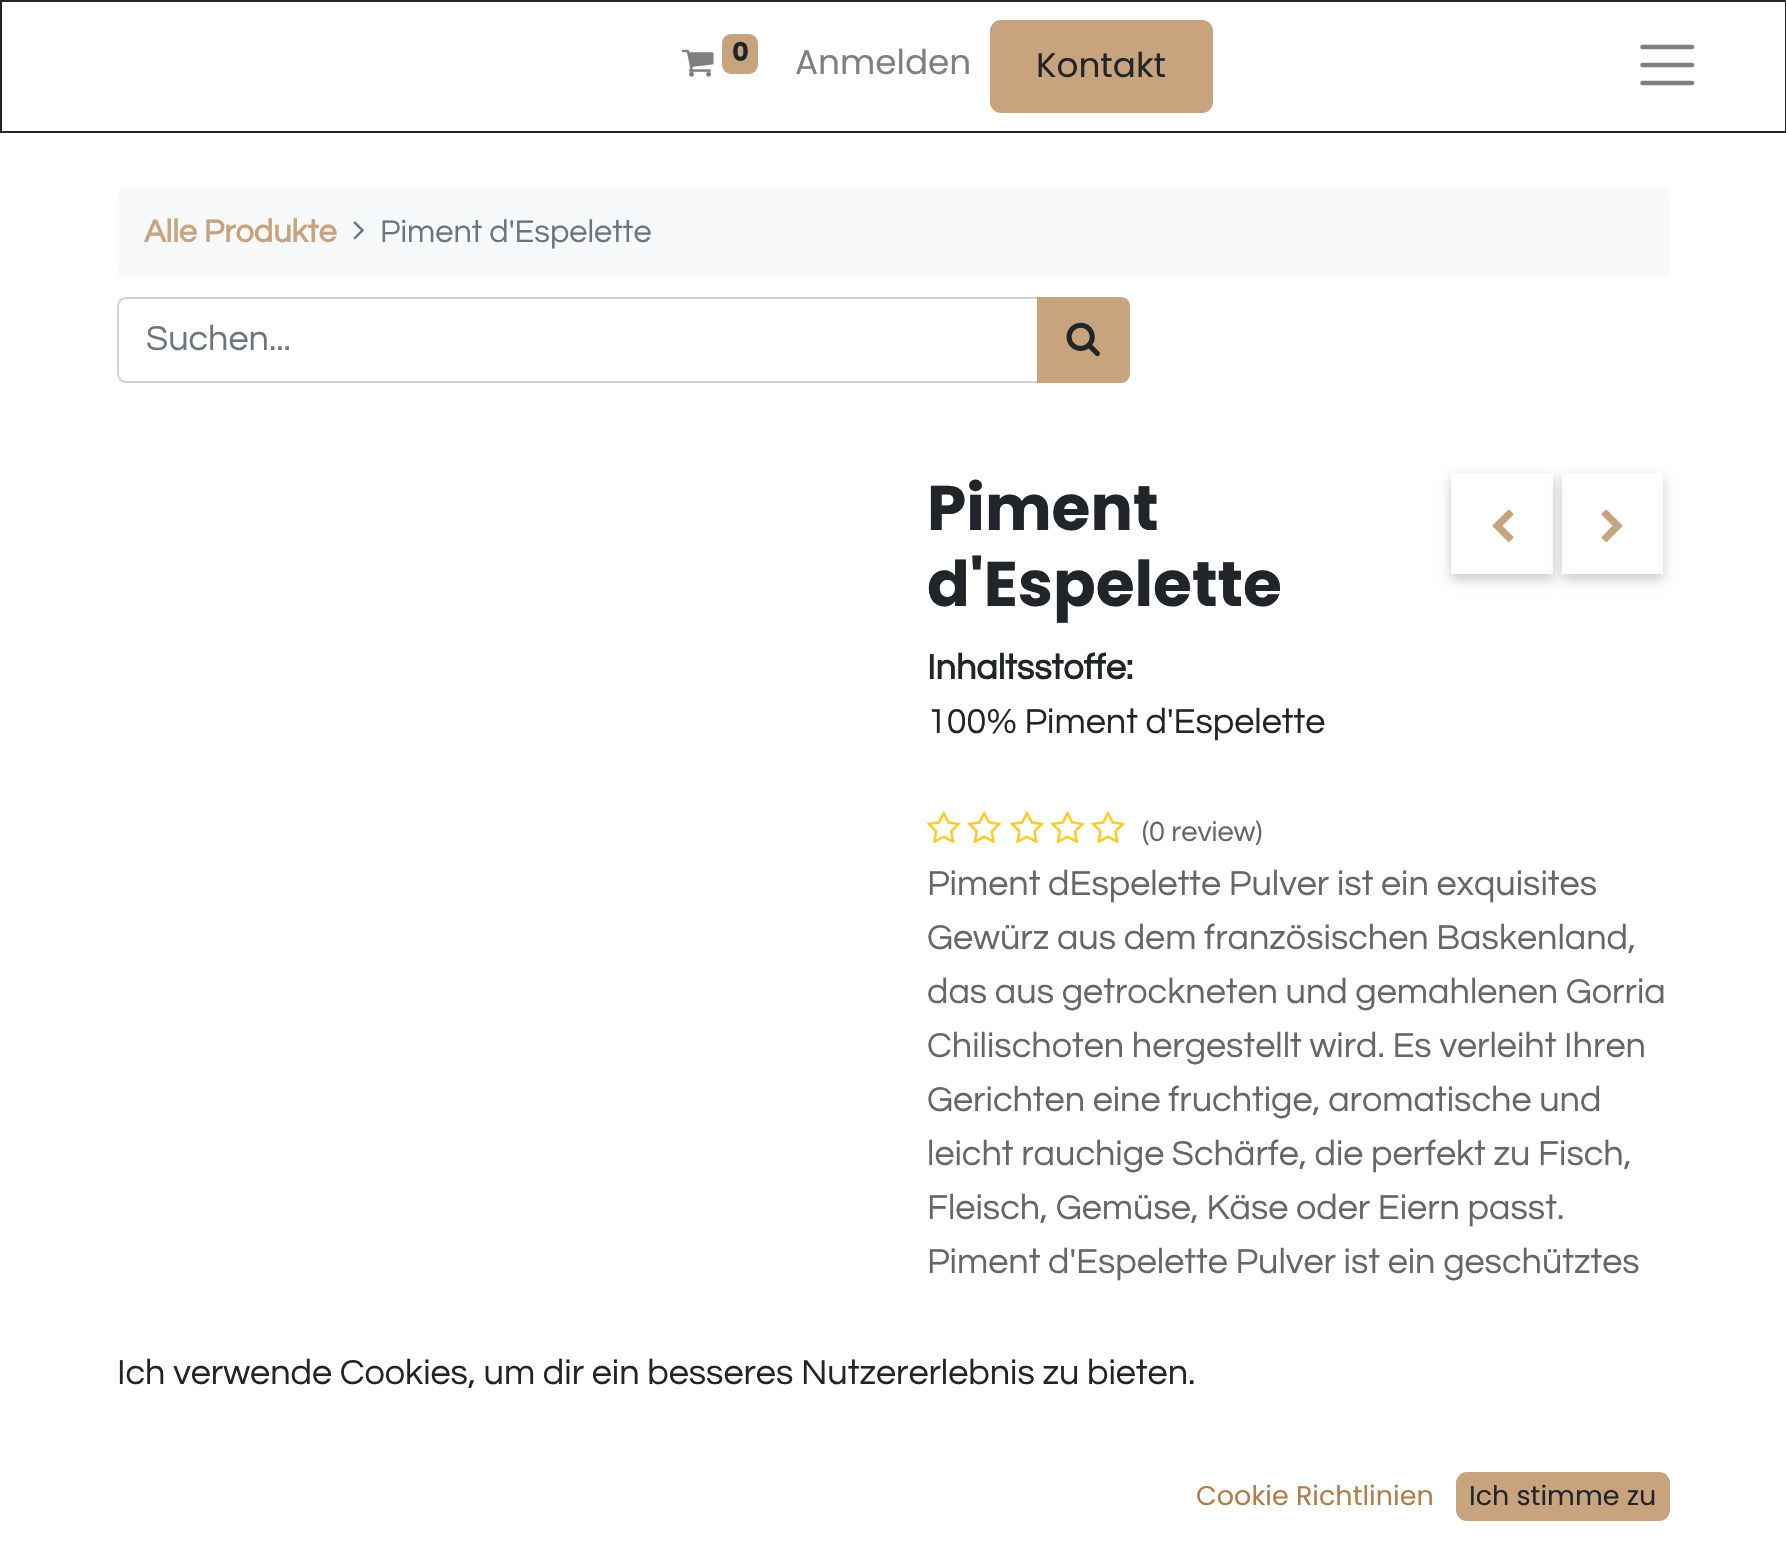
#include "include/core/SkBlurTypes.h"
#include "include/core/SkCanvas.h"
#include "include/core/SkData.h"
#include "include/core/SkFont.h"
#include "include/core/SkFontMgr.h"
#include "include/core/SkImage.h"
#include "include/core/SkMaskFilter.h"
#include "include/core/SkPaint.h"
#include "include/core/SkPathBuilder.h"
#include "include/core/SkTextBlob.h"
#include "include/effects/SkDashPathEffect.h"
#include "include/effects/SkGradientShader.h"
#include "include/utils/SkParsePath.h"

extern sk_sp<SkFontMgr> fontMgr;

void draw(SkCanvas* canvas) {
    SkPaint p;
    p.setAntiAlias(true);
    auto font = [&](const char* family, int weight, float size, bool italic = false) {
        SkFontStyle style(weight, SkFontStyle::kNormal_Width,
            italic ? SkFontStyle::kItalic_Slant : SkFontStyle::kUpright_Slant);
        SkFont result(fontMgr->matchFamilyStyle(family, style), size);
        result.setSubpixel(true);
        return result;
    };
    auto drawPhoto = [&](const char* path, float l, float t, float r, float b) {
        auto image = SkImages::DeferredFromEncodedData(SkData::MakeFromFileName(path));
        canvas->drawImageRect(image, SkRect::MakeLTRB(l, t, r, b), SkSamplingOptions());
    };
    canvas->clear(0xFFFFFFFF);
    p.setStyle(SkPaint::kStroke_Style);
    p.setStrokeWidth(2);
    p.setColor(0xFF212529);
    canvas->drawRect(SkRect::MakeLTRB(1, 1, 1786, 132), p);
    drawPhoto("media/1.png", 681, 49, 714, 77);
    p.setStyle(SkPaint::kFill_Style);
    p.setColor(0xFFC8A47E);
    canvas->drawRoundRect(SkRect::MakeLTRB(722, 34, 758, 74), 9, 9, p);
    auto font1 = font("Poppins", 700, 26);
    p.setColor(0xFF212529);
    canvas->drawString("0", 732, 61, font1, p);
    auto font2 = font("Poppins", 400, 34.25f);
    p.setColor(0xFF808080);
    canvas->drawString("Anmelden", 795, 74, font2, p);
    p.setColor(0xFFC8A47E);
    canvas->drawRoundRect(SkRect::MakeLTRB(991, 21, 1212, 112), 10, 10, p);
    p.setStyle(SkPaint::kStroke_Style);
    canvas->drawRoundRect(SkRect::MakeLTRB(991, 21, 1212, 112), 10, 10, p);
    p.setStyle(SkPaint::kFill_Style);
    p.setColor(0xFF212529);
    canvas->drawString("Kontakt", 1036, 77, font2, p);
    p.setStyle(SkPaint::kStroke_Style);
    p.setStrokeWidth(4.5f);
    p.setStrokeCap(SkPaint::kRound_Cap);
    p.setColor(0xFF808080);
    canvas->drawPath(SkPathBuilder().moveTo(1642.5f, 47).lineTo(1692, 47).moveTo(1642.5f, 65).lineTo(1692, 65).moveTo(1642.5f, 83).lineTo(1692, 83).detach(), p);
    p.setStyle(SkPaint::kFill_Style);
    p.setColor(0xFFF8F9FA);
    canvas->drawRoundRect(SkRect::MakeLTRB(117, 187, 1670, 279), 9, 9, p);
    auto font3 = font("Questrial", 700, 32.5f);
    p.setColor(0xFFC8A47E);
    canvas->drawString("Alle Produkte", 144, 242, font3, p);
    drawPhoto("media/2.png", 353, 221, 364, 240);
    auto font4 = font("Questrial", 400, 32.5f);
    p.setColor(0xFF6C757D);
    canvas->drawString("Piment d'Espelette", 380, 242, font4, p);
    p.setStyle(SkPaint::kStroke_Style);
    p.setStrokeWidth(2);
    p.setStrokeCap(SkPaint::kButt_Cap);
    p.setColor(0xFFCED4DA);
    canvas->drawPath(SkPathBuilder().moveTo(126, 298).lineTo(1039, 298).lineTo(1039, 382).lineTo(126, 382).cubicTo(121.5f, 382, 118, 378.5f, 118, 374).lineTo(118, 306).cubicTo(118, 301.5f, 121.5f, 298, 126, 298).close().detach(), p);
    auto font5 = font("Questrial", 400, 36);
    p.setStyle(SkPaint::kFill_Style);
    p.setColor(0xFF6C757D);
    canvas->drawString("Suchen...", 146, 350, font5, p);
    p.setColor(0xFFC8A47E);
    canvas->drawPath(SkPathBuilder().moveTo(1038, 298).lineTo(1121, 298).cubicTo(1125.5f, 298, 1129, 301.5f, 1129, 306).lineTo(1129, 374).cubicTo(1129, 378.5f, 1125.5f, 382, 1121, 382).lineTo(1038, 382).close().detach(), p);
    p.setStyle(SkPaint::kStroke_Style);
    canvas->drawPath(SkPathBuilder().moveTo(1038, 298).lineTo(1121, 298).cubicTo(1125.5f, 298, 1129, 301.5f, 1129, 306).lineTo(1129, 374).cubicTo(1129, 378.5f, 1125.5f, 382, 1121, 382).lineTo(1038, 382).close().detach(), p);
    drawPhoto("media/3.png", 1066, 322, 1100, 357);
    auto font6 = font("Poppins", 700, 63);
    p.setStyle(SkPaint::kFill_Style);
    p.setColor(0xFF212529);
    canvas->drawString("Piment", 927, 530, font6, p);
    canvas->drawString("d'Espelette", 927, 606, font6, p);
    canvas->save();
    canvas->clipPath(SkPathBuilder(SkPathFillType::kEvenOdd).moveTo(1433, 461).lineTo(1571, 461).lineTo(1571, 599).lineTo(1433, 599).close().moveTo(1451, 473).lineTo(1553, 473).lineTo(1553, 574).lineTo(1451, 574).close().detach(), true);
    p.setColor(0x1A000000);
    p.setMaskFilter(SkMaskFilter::MakeBlur(kNormal_SkBlurStyle, 5.5f));
    canvas->drawRect(SkRect::MakeLTRB(1451, 479, 1553, 581), p);
    p.setMaskFilter(nullptr);
    canvas->restore();
    canvas->save();
    canvas->clipPath(SkPathBuilder(SkPathFillType::kEvenOdd).moveTo(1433, 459).lineTo(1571, 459).lineTo(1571, 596).lineTo(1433, 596).close().moveTo(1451, 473).lineTo(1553, 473).lineTo(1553, 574).lineTo(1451, 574).close().detach(), true);
    p.setMaskFilter(SkMaskFilter::MakeBlur(kNormal_SkBlurStyle, 5.5f));
    canvas->drawRect(SkRect::MakeLTRB(1451, 477, 1553, 578), p);
    p.setMaskFilter(nullptr);
    canvas->restore();
    drawPhoto("media/4.png", 1492, 509, 1514, 542);
    canvas->save();
    canvas->clipPath(SkPathBuilder(SkPathFillType::kEvenOdd).moveTo(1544, 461).lineTo(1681, 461).lineTo(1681, 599).lineTo(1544, 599).close().moveTo(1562, 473).lineTo(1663, 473).lineTo(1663, 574).lineTo(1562, 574).close().detach(), true);
    p.setMaskFilter(SkMaskFilter::MakeBlur(kNormal_SkBlurStyle, 5.5f));
    canvas->drawRect(SkRect::MakeLTRB(1562, 479, 1663, 581), p);
    p.setMaskFilter(nullptr);
    canvas->restore();
    canvas->save();
    canvas->clipPath(SkPathBuilder(SkPathFillType::kEvenOdd).moveTo(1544, 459).lineTo(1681, 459).lineTo(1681, 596).lineTo(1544, 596).close().moveTo(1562, 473).lineTo(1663, 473).lineTo(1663, 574).lineTo(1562, 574).close().detach(), true);
    p.setMaskFilter(SkMaskFilter::MakeBlur(kNormal_SkBlurStyle, 5.5f));
    canvas->drawRect(SkRect::MakeLTRB(1562, 477, 1663, 578), p);
    p.setMaskFilter(nullptr);
    canvas->restore();
    drawPhoto("media/5.png", 1601, 509, 1623, 542);
    auto font7 = font("Questrial", 700, 36);
    p.setColor(0xFF212529);
    canvas->drawString("Inhaltsstoffe:", 927, 679, font7, p);
    canvas->drawString("100% Piment d'Espelette", 927, 733, font5, p);
    drawPhoto("media/6.png", 927, 811, 961, 844);
    drawPhoto("media/7.png", 967, 811, 1001, 844);
    drawPhoto("media/8.png", 1010, 811, 1044, 844);
    drawPhoto("media/9.png", 1050, 811, 1085, 844);
    drawPhoto("media/8.png", 1091, 811, 1125, 844);
    auto font8 = font("Questrial", 400, 29);
    p.setColor(0xFF646669);
    canvas->drawString("(0 review)", 1142, 841, font8, p);
    {
        const struct { const char* s; float x, y; } items[] = {
            {"Piment dEspelette Pulver ist ein exquisites", 927, 895},
            {"Gewürz aus dem französischen Baskenland,", 927, 949},
            {"das aus getrockneten und gemahlenen Gorria", 927, 1003},
            {"Chilischoten hergestellt wird. Es verleiht Ihren", 927, 1057},
            {"Gerichten eine fruchtige, aromatische und", 927, 1111},
            {"leicht rauchige Schärfe, die perfekt zu Fisch,", 927, 1165},
            {"Fleisch, Gemüse, Käse oder Eiern passt.", 927, 1219},
            {"Piment d'Espelette Pulver ist ein geschütztes", 927, 1273},
        };
        for (auto [s, x, y] : items) {
            canvas->drawString(s, x, y, font5, p);
        }
    }
    p.setColor(0xFF212529);
    canvas->drawString("Ich verwende Cookies, um dir ein besseres Nutzererlebnis zu bieten.", 117, 1384, font5, p);
    auto font9 = font("Poppins", 400, 27);
    p.setColor(0xFFAF7E4B);
    canvas->drawString("Cookie Richtlinien", 1196, 1505, font9, p);
    p.setColor(0xFFC8A47E);
    canvas->drawRoundRect(SkRect::MakeLTRB(1457, 1473, 1669, 1520), 10, 10, p);
    p.setStyle(SkPaint::kStroke_Style);
    canvas->drawRoundRect(SkRect::MakeLTRB(1457, 1473, 1669, 1520), 10, 10, p);
    p.setStyle(SkPaint::kFill_Style);
    p.setColor(0xFF212529);
    canvas->drawString("Ich stimme zu", 1469, 1505, font9, p);
}
